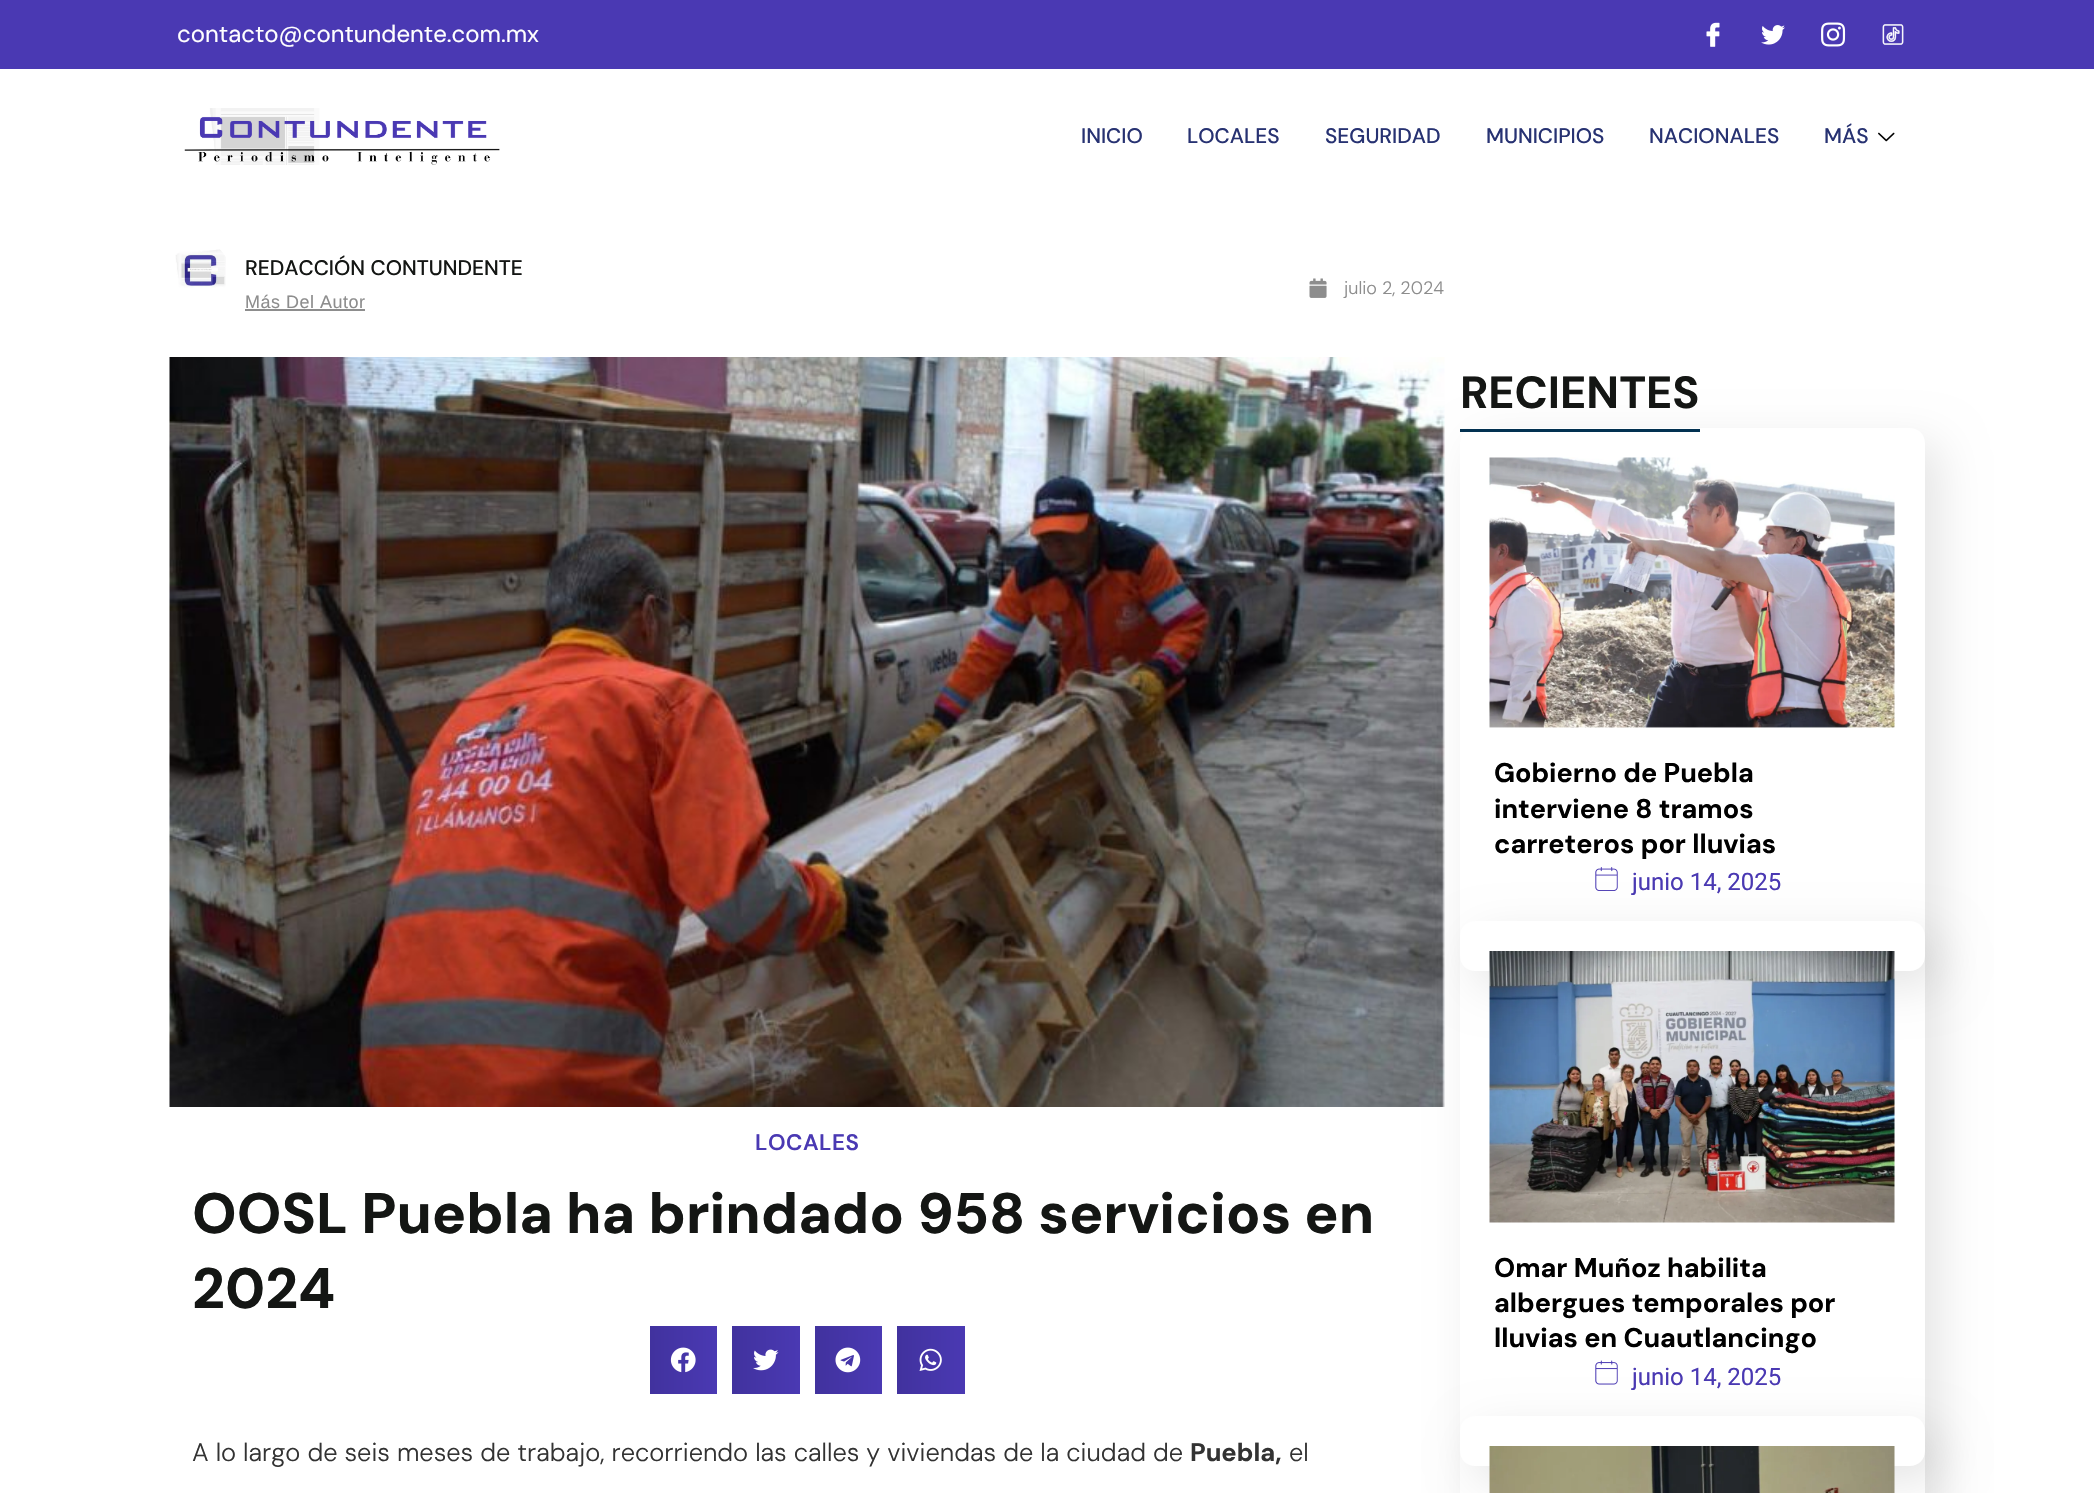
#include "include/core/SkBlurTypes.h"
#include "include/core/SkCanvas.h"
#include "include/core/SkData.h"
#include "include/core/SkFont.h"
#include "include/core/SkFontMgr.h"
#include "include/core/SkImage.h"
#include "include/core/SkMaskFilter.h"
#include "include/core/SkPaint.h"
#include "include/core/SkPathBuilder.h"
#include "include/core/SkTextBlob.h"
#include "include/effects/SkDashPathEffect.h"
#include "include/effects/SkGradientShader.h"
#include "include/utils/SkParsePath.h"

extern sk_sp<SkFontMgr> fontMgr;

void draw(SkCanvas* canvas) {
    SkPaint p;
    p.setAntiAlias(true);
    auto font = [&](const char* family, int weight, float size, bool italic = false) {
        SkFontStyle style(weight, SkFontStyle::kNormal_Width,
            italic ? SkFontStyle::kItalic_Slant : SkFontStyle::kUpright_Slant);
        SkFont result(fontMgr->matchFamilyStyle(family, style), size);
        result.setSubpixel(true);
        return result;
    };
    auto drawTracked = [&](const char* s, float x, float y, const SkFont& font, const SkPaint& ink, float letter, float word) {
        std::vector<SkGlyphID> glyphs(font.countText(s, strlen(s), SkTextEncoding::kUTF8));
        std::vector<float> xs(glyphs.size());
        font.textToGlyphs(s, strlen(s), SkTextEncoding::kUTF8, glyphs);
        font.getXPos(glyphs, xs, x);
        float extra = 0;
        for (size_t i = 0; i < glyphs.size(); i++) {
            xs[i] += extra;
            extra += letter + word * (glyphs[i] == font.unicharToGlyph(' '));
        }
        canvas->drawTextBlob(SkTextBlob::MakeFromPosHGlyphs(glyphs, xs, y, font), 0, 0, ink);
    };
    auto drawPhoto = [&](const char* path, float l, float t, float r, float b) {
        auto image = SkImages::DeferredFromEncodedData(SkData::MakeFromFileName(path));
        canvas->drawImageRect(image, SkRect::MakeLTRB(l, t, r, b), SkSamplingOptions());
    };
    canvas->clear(0xFFFFFFFF);
    p.setColor(0xFF4A39B3);
    canvas->drawRect(SkRect::MakeLTRB(0, 0, 2094, 69), p);
    auto font1 = font("DM Sans", 400, 24);
    p.setColor(0xFFFFFFFF);
    canvas->drawString("contacto@contundente.com.mx", 177, 42, font1, p);
    drawPhoto("media/1.png", 1706, 22, 1720, 47);
    drawPhoto("media/2.png", 1761, 25, 1785, 45);
    drawPhoto("media/3.png", 1821, 22, 1846, 47);
    drawPhoto("media/4.png", 1882, 24, 1904, 45);
    drawPhoto("media/5.png", 184, 108, 500, 165);
    auto font2 = font("DM Sans", 500, 21);
    p.setColor(0xFF273272);
    {
        const struct { const char* s; float x, y; } items[] = {
            {"INICIO", 1081, 143},
            {"LOCALES", 1187, 143},
            {"SEGURIDAD", 1325, 143},
            {"MUNICIPIOS", 1486, 143},
            {"NACIONALES", 1649, 143},
            {"MÁS", 1824, 143},
        };
        for (auto [s, x, y] : items) {
            canvas->drawString(s, x, y, font2, p);
        }
    }
    drawPhoto("media/6.png", 1878, 132, 1895, 142);
    drawPhoto("media/7.png", 175, 249, 226, 288);
    p.setColor(0xFF141614);
    canvas->drawString("REDACCIÓN CONTUNDENTE", 245, 275, font2, p);
    auto font3 = font("Liberation Sans", 400, 18);
    p.setColor(0xFF8D8D8D);
    drawTracked("Más Del Autor", 245, 308, font3, p, 0.5f, 0);
    canvas->drawRect(SkRect::MakeLTRB(245, 309, 365, 311), p);
    drawPhoto("media/8.png", 1309, 278, 1327, 298);
    auto font4 = font("DM Sans", 300, 18);
    canvas->drawString("julio 2, 2024", 1344, 294, font4, p);
    drawPhoto("media/9.png", 169, 357, 1445, 1107);
    auto font5 = font("DM Sans", 600, 22.5f);
    p.setColor(0xFF4A39B3);
    drawTracked("LOCALES", 755, 1150, font5, p, 0.5f, 0);
    auto font6 = font("DM Sans", 800, 57);
    p.setColor(0xFF141614);
    canvas->drawString("OOSL Puebla ha brindado 958 servicios en", 192, 1233, font6, p);
    canvas->drawString("2024", 192, 1308, font6, p);
    {
        const SkColor colors[] = {0xFF41329E, 0xFF4A39B3};
        const float stops[] = {0, 1};
        const SkPoint ends[] = {{650, 1360}, {717, 1360}};
        p.setShader(SkGradientShader::MakeLinear(ends, colors, stops, 2, SkTileMode::kClamp));
        p.setAlpha(255);
    }
    canvas->drawRect(SkRect::MakeLTRB(650, 1326, 717, 1394), p);
    drawPhoto("media/10.png", 670, 1347, 696, 1373);
    {
        const SkColor colors[] = {0xFF41329E, 0xFF4A39B3};
        const float stops[] = {0, 1};
        const SkPoint ends[] = {{732, 1360}, {800, 1360}};
        p.setShader(SkGradientShader::MakeLinear(ends, colors, stops, 2, SkTileMode::kClamp));
        p.setAlpha(255);
    }
    canvas->drawRect(SkRect::MakeLTRB(732, 1326, 800, 1394), p);
    drawPhoto("media/11.png", 753, 1349, 779, 1371);
    {
        const SkColor colors[] = {0xFF41329E, 0xFF4A39B3};
        const float stops[] = {0, 1};
        const SkPoint ends[] = {{815, 1360}, {882, 1360}};
        p.setShader(SkGradientShader::MakeLinear(ends, colors, stops, 2, SkTileMode::kClamp));
        p.setAlpha(255);
    }
    canvas->drawRect(SkRect::MakeLTRB(815, 1326, 882, 1394), p);
    drawPhoto("media/12.png", 835, 1347, 861, 1373);
    {
        const SkColor colors[] = {0xFF41329E, 0xFF4A39B3};
        const float stops[] = {0, 1};
        const SkPoint ends[] = {{897, 1360}, {965, 1360}};
        p.setShader(SkGradientShader::MakeLinear(ends, colors, stops, 2, SkTileMode::kClamp));
        p.setAlpha(255);
    }
    canvas->drawRect(SkRect::MakeLTRB(897, 1326, 965, 1394), p);
    drawPhoto("media/13.png", 919, 1348, 942, 1371);
    auto font7 = font("DM Sans", 300, 25.5f);
    p.setShader(nullptr);
    p.setColor(0xFF333333);
    canvas->drawString("A lo largo de seis meses de trabajo, recorriendo las calles y viviendas de la ciudad de", 192, 1461, font7, p);
    auto font8 = font("DM Sans", 700, 25.5f);
    canvas->drawString("Puebla,", 1190, 1461, font8, p);
    canvas->drawString("el", 1289, 1461, font7, p);
    p.setColor(0xFF023151);
    canvas->drawRect(SkRect::MakeLTRB(1460, 429, 1700, 432), p);
    auto font9 = font("DM Sans", 700, 45);
    p.setColor(0xFF141614);
    canvas->drawString("RECIENTES", 1460, 408, font9, p);
    canvas->save();
    canvas->clipPath(SkPathBuilder(SkPathFillType::kEvenOdd).moveTo(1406, 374).lineTo(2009, 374).lineTo(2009, 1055).lineTo(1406, 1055).close().moveTo(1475, 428).lineTo(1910, 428).cubicTo(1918.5f, 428, 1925, 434.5f, 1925, 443).lineTo(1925, 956).cubicTo(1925, 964.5f, 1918.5f, 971, 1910, 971).lineTo(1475, 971).cubicTo(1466.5f, 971, 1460, 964.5f, 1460, 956).lineTo(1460, 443).cubicTo(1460, 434.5f, 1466.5f, 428, 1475, 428).close().detach(), true);
    p.setColor(0x1A000000);
    p.setMaskFilter(SkMaskFilter::MakeBlur(kNormal_SkBlurStyle, 22.5f));
    canvas->drawRoundRect(SkRect::MakeLTRB(1475, 443, 1940, 986), 15, 15, p);
    p.setMaskFilter(nullptr);
    canvas->restore();
    drawPhoto("media/14.png", 1489, 457, 1895, 728);
    auto font10 = font("DM Sans", 700, 27);
    p.setColor(0xFF000000);
    {
        const struct { const char* s; float x, y; } items[] = {
            {"Gobierno de Puebla", 1494, 782},
            {"interviene 8 tramos", 1494, 818},
            {"carreteros por lluvias", 1494, 853},
        };
        for (auto [s, x, y] : items) {
            canvas->drawString(s, x, y, font10, p);
        }
    }
    drawPhoto("media/15.png", 1595, 867, 1618, 891);
    auto font11 = font("Roboto", 400, 24);
    p.setColor(0xFF4A39B3);
    canvas->drawString("junio 14, 2025", 1632, 890, font11, p);
    canvas->save();
    canvas->clipPath(SkPathBuilder(SkPathFillType::kEvenOdd).moveTo(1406, 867).lineTo(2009, 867).lineTo(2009, 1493).lineTo(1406, 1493).close().moveTo(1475, 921).lineTo(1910, 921).cubicTo(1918.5f, 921, 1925, 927.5f, 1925, 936).lineTo(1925, 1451).cubicTo(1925, 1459.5f, 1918.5f, 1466, 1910, 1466).lineTo(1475, 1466).cubicTo(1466.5f, 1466, 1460, 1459.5f, 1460, 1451).lineTo(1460, 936).cubicTo(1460, 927.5f, 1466.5f, 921, 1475, 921).close().detach(), true);
    p.setColor(0x1A000000);
    p.setMaskFilter(SkMaskFilter::MakeBlur(kNormal_SkBlurStyle, 22.5f));
    canvas->drawRoundRect(SkRect::MakeLTRB(1475, 936, 1940, 1481), 15, 15, p);
    p.setMaskFilter(nullptr);
    canvas->restore();
    drawPhoto("media/16.png", 1489, 951, 1895, 1223);
    p.setColor(0xFF000000);
    {
        const struct { const char* s; float x, y; } items[] = {
            {"Omar Muñoz habilita", 1494, 1277},
            {"albergues temporales por", 1494, 1312},
            {"lluvias en Cuautlancingo", 1494, 1347},
        };
        for (auto [s, x, y] : items) {
            canvas->drawString(s, x, y, font10, p);
        }
    }
    drawPhoto("media/17.png", 1595, 1360, 1618, 1385);
    p.setColor(0xFF4A39B3);
    canvas->drawString("junio 14, 2025", 1632, 1385, font11, p);
    canvas->save();
    canvas->clipPath(SkPathBuilder(SkPathFillType::kEvenOdd).moveTo(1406, 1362).lineTo(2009, 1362).lineTo(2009, 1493).lineTo(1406, 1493).close().moveTo(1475, 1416).lineTo(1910, 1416).cubicTo(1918.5f, 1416, 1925, 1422.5f, 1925, 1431).lineTo(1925, 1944).cubicTo(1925, 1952.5f, 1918.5f, 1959, 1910, 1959).lineTo(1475, 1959).cubicTo(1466.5f, 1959, 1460, 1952.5f, 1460, 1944).lineTo(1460, 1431).cubicTo(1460, 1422.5f, 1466.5f, 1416, 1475, 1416).close().detach(), true);
    p.setColor(0x1A000000);
    p.setMaskFilter(SkMaskFilter::MakeBlur(kNormal_SkBlurStyle, 22.5f));
    canvas->drawRoundRect(SkRect::MakeLTRB(1475, 1431, 1940, 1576), 15, 15, p);
    p.setMaskFilter(nullptr);
    canvas->restore();
    drawPhoto("media/18.png", 1489, 1446, 1895, 1493);
}
